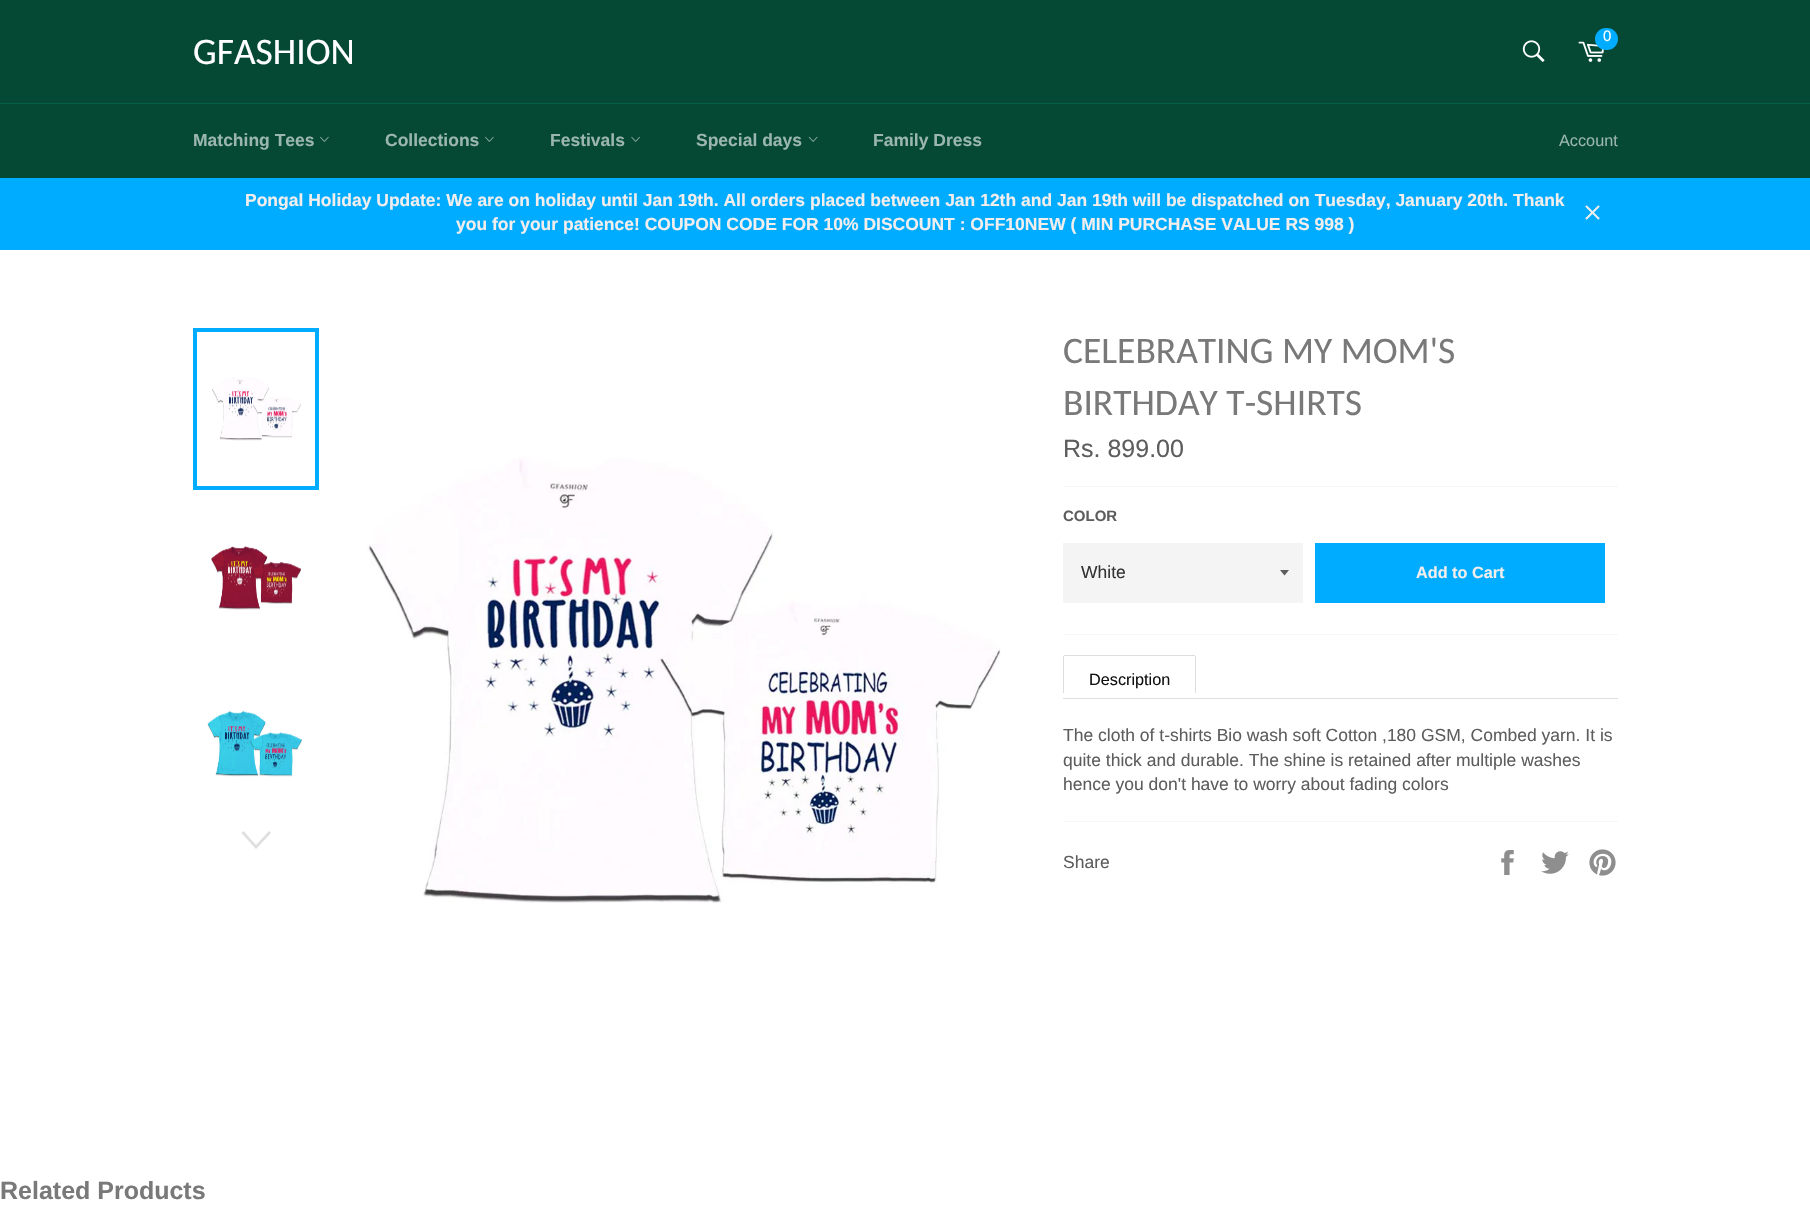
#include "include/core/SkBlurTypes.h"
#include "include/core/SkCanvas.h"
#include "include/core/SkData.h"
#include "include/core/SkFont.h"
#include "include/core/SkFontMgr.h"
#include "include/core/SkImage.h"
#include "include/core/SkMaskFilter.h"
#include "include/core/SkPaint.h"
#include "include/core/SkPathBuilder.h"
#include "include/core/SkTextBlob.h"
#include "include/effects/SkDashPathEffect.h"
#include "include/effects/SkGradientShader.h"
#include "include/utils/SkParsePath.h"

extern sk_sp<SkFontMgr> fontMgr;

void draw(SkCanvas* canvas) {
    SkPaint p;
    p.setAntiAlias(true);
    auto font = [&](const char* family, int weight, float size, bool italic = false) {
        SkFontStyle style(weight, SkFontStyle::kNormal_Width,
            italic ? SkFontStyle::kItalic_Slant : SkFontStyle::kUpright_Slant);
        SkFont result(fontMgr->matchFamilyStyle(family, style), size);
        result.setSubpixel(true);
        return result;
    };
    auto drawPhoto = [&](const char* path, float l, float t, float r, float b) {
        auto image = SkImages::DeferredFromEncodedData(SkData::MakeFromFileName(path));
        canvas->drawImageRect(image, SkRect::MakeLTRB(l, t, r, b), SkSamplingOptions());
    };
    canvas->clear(0xFF054935);
    drawPhoto("media/1.png", 1578, 41, 1604, 62);
    p.setColor(0xFF00ACFF);
    canvas->drawRoundRect(SkRect::MakeLTRB(1595, 28, 1618, 50), 11, 11, p);
    auto font1 = font("Liberation Sans", 400, 15);
    p.setColor(0xFFFFFFFF);
    canvas->drawString("0", 1603, 41, font1, p);
    drawPhoto("media/2.png", 1522, 40, 1545, 62);
    auto font2 = font("Carlito", 400, 37.5f);
    canvas->drawString("GFASHION", 193, 64, font2, p);
    p.setColor(0xFF076146);
    canvas->drawRect(SkRect::MakeLTRB(0, 103, 1810, 104), p);
    auto font3 = font("Liberation Sans", 700, 17.5f);
    p.setColor(0xFF9BB6AE);
    canvas->drawString("Matching Tees", 193, 146, font3, p);
    drawPhoto("media/3.png", 320, 136, 329, 142);
    canvas->drawString("Collections", 385, 146, font3, p);
    drawPhoto("media/3.png", 485, 136, 494, 142);
    canvas->drawString("Festivals", 550, 146, font3, p);
    drawPhoto("media/4.png", 631, 136, 640, 142);
    canvas->drawString("Special days", 696, 146, font3, p);
    drawPhoto("media/5.png", 808, 136, 818, 142);
    canvas->drawString("Family Dress", 873, 146, font3, p);
    auto font4 = font("Liberation Sans", 400, 16.25f);
    canvas->drawString("Account", 1559, 146, font4, p);
    p.setColor(0xFF00ACFF);
    canvas->drawRect(SkRect::MakeLTRB(0, 178, 1810, 250), p);
    p.setColor(0xFFF2EEEE);
    canvas->drawString("Pongal Holiday Update: We are on holiday until Jan 19th. All orders placed between Jan 12th and Jan 19th will be dispatched on Tuesday, January 20th. Thank", 245, 206, font3, p);
    canvas->drawString("you for your patience! COUPON CODE FOR 10% DISCOUNT : OFF10NEW ( MIN PURCHASE VALUE RS 998 )", 456, 230, font3, p);
    drawPhoto("media/6.png", 1585, 205, 1600, 220);
    p.setColor(0xFFFFFFFF);
    canvas->drawRect(SkRect::MakeLTRB(0, 250, 1810, 1214), p);
    drawPhoto("media/7.png", 212, 377, 301, 441);
    p.setStyle(SkPaint::kStroke_Style);
    p.setStrokeWidth(4);
    p.setColor(0xFF00ACFF);
    canvas->drawRect(SkRect::MakeLTRB(195, 330, 317, 488), p);
    drawPhoto("media/8.png", 211, 546, 301, 610);
    drawPhoto("media/9.png", 207, 710, 302, 777);
    p.setStyle(SkPaint::kFill_Style);
    p.setColor(0xFFDFDFDF);
    canvas->drawPath(SkPathBuilder().moveTo(269, 831).lineTo(271, 833).lineTo(256, 849).lineTo(241.5f, 833).lineTo(243.5f, 831).lineTo(256, 845).close().detach(), p);
    drawPhoto("media/10.png", 367, 457, 1001, 903);
    p.setColor(0xFF797979);
    canvas->drawString("CELEBRATING MY MOM'S", 1063, 363, font2, p);
    canvas->drawString("BIRTHDAY T-SHIRTS", 1063, 415, font2, p);
    auto font5 = font("Liberation Sans", 400, 25);
    p.setColor(0xFF5D5D5D);
    canvas->drawString("Rs. 899.00", 1063, 457, font5, p);
    p.setColor(0xFFF6F6F6);
    canvas->drawRect(SkRect::MakeLTRB(1063, 486, 1618, 487), p);
    auto font6 = font("Liberation Sans", 700, 15);
    p.setColor(0xFF5D5D5D);
    canvas->drawString("COLOR", 1063, 521, font6, p);
    p.setColor(0xFFF4F4F4);
    canvas->drawRect(SkRect::MakeLTRB(1063, 543, 1303, 603), p);
    p.setColor(0xFF5D5D5D);
    canvas->drawPath(SkPathBuilder().moveTo(1280, 570).lineTo(1284.5f, 575.5f).lineTo(1289, 570).close().detach(), p);
    auto font7 = font("Liberation Sans", 400, 17.5f);
    p.setColor(0xFF333333);
    canvas->drawString("White", 1081, 578, font7, p);
    p.setColor(0xFF00ACFF);
    canvas->drawRect(SkRect::MakeLTRB(1315, 543, 1605, 603), p);
    auto font8 = font("Liberation Sans", 700, 16.25f);
    p.setColor(0xFFF2EEEE);
    canvas->drawString("Add to Cart", 1416, 578, font8, p);
    {
        const struct { float l, t, r, b; SkColor color; } items[] = {
            {1063, 634, 1618, 635, 0xFFF6F6F6},
            {1063, 698, 1618, 699, 0xFFDDDDDD},
            {1064, 655, 1195, 656, 0xFFDDDDDD},
            {1195, 656, 1196, 693, 0xFFDDDDDD},
            {1063, 656, 1064, 693, 0xFFDDDDDD},
        };
        for (auto [l, t, r, b, color] : items) {
            p.setColor(color);
            canvas->drawRect(SkRect::MakeLTRB(l, t, r, b), p);
        }
    }
    p.setColor(0xFF111111);
    canvas->drawString("Description", 1089, 685, font4, p);
    p.setColor(0xFF5D5D5D);
    {
        const struct { const char* s; float x, y; } items[] = {
            {"The cloth of t-shirts Bio wash soft Cotton ,180 GSM, Combed yarn. It is", 1063, 741},
            {"quite thick and durable. The shine is retained after multiple washes", 1063, 766},
            {"hence you don't have to worry about fading colors", 1063, 790},
        };
        for (auto [s, x, y] : items) {
            canvas->drawString(s, x, y, font7, p);
        }
    }
    p.setColor(0xFFF6F6F6);
    canvas->drawRect(SkRect::MakeLTRB(1063, 821, 1618, 822), p);
    p.setColor(0xFF5D5D5D);
    canvas->drawString("Share", 1063, 868, font7, p);
    drawPhoto("media/11.png", 1501, 850, 1514, 875);
    drawPhoto("media/12.png", 1541, 851, 1569, 874);
    drawPhoto("media/13.png", 1589, 849, 1616, 876);
    auto font9 = font("Liberation Sans", 700, 25);
    p.setColor(0xFF797979);
    canvas->drawString("Related Products", 0, 1199, font9, p);
}
